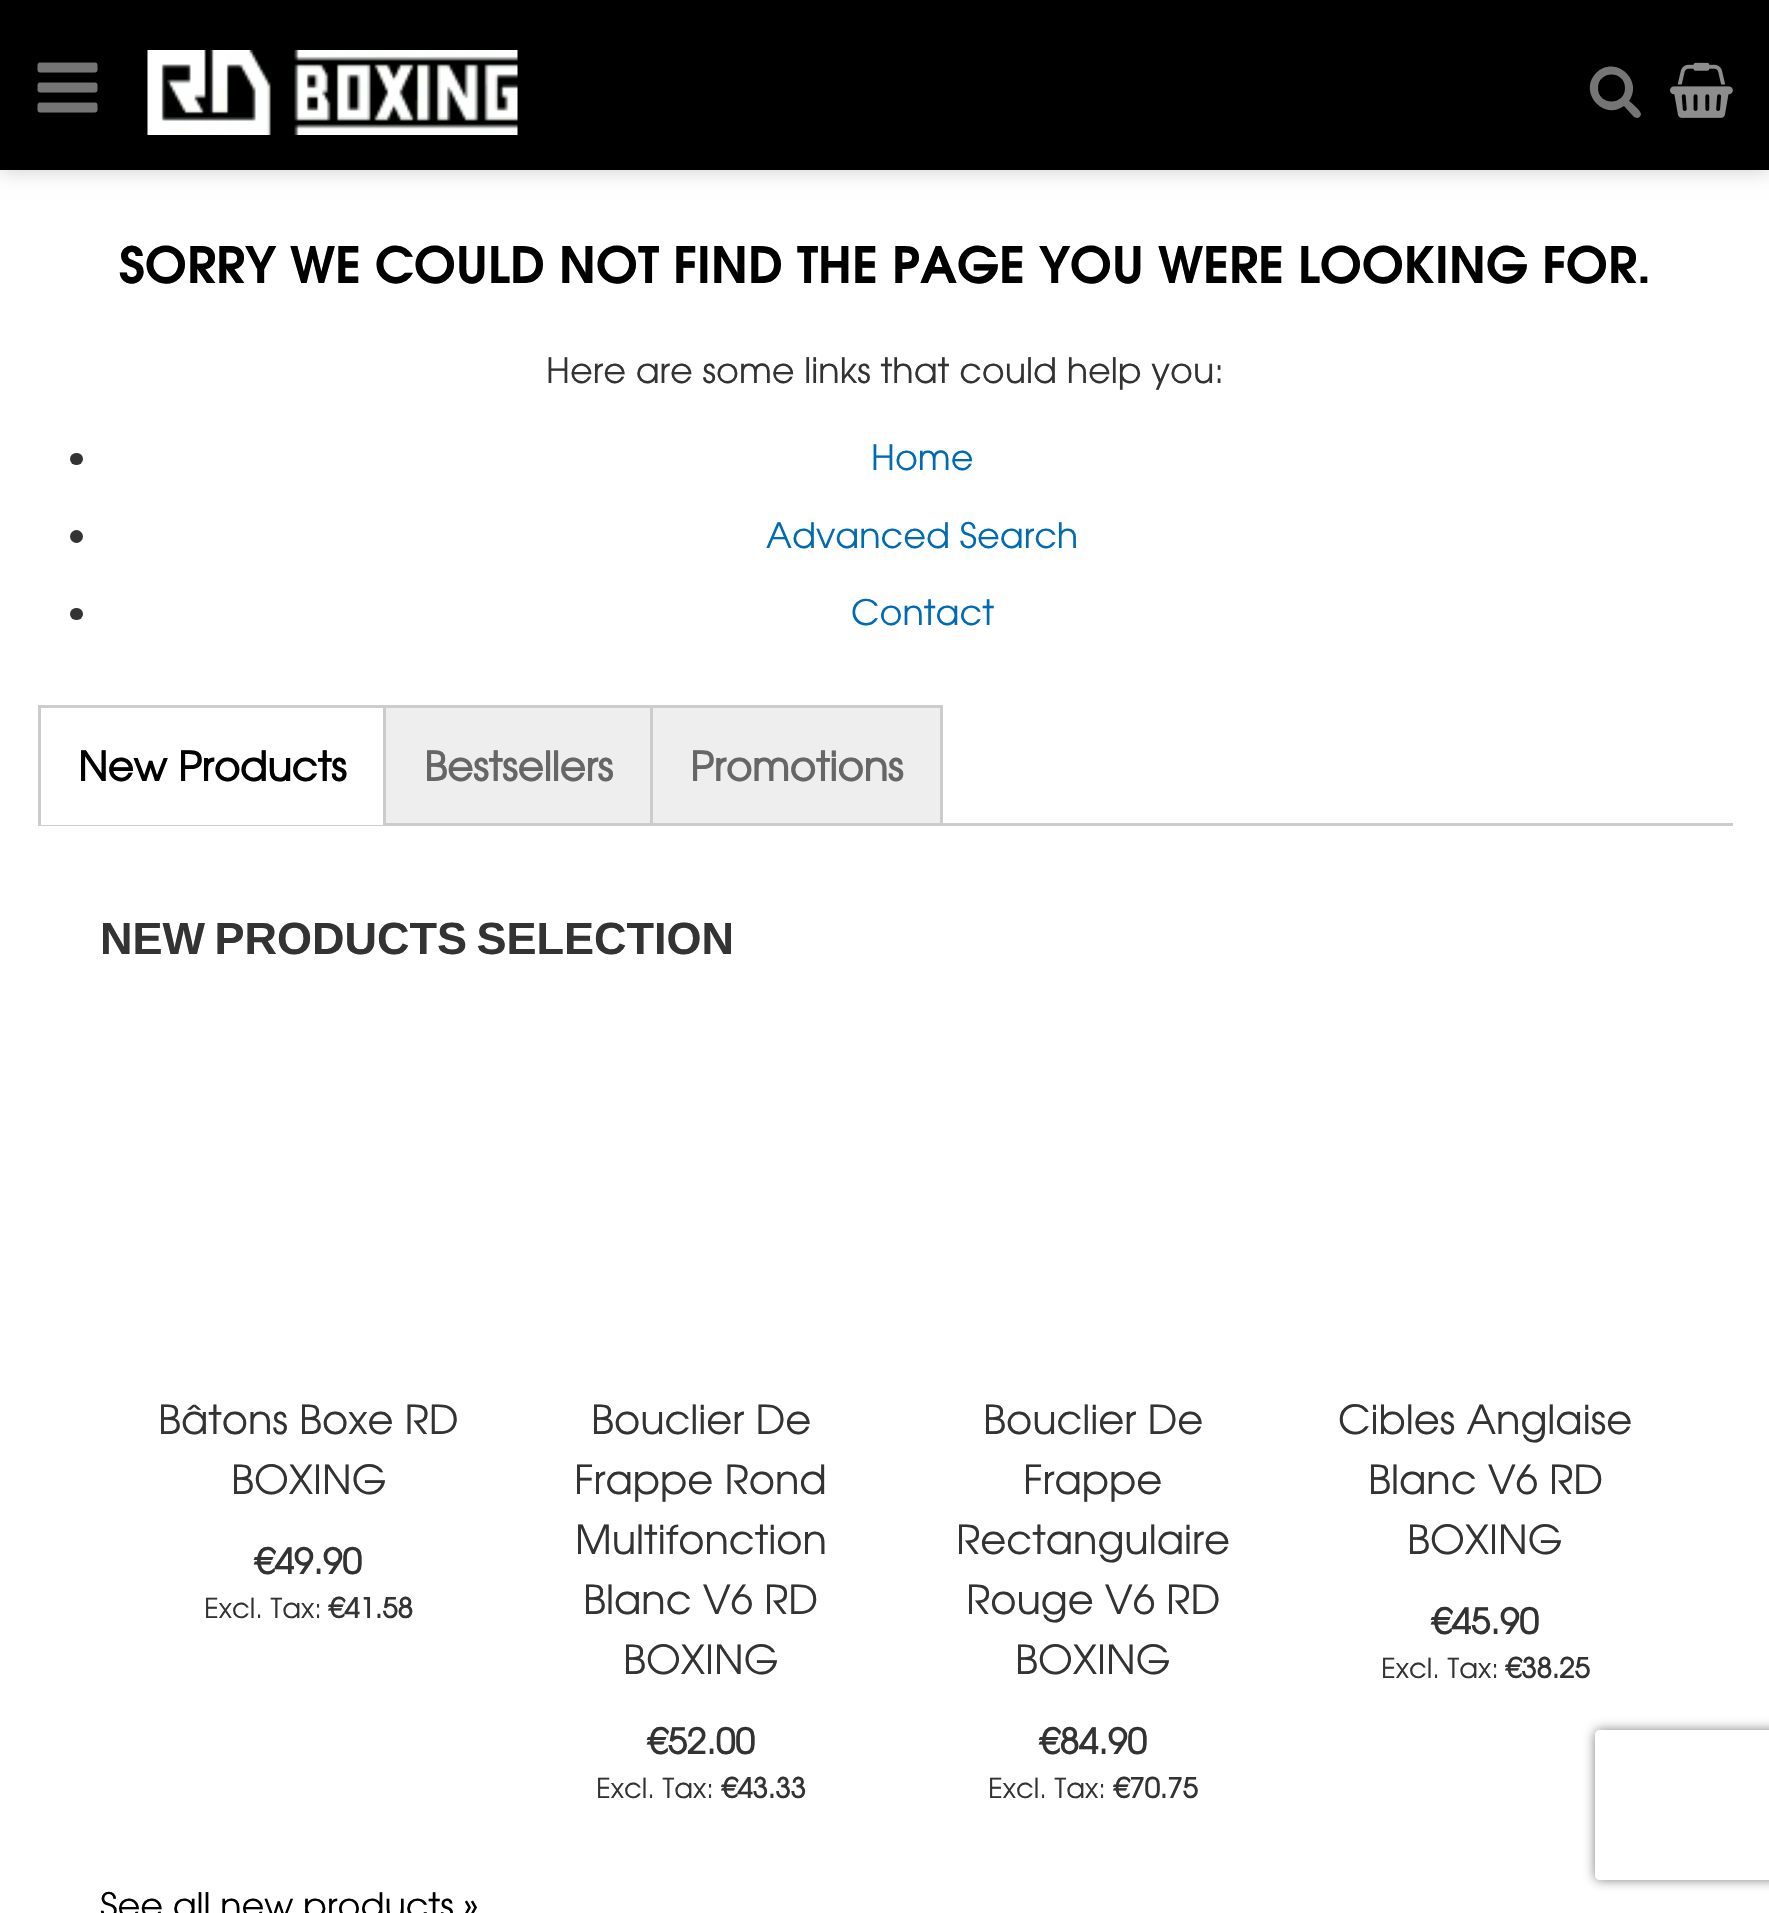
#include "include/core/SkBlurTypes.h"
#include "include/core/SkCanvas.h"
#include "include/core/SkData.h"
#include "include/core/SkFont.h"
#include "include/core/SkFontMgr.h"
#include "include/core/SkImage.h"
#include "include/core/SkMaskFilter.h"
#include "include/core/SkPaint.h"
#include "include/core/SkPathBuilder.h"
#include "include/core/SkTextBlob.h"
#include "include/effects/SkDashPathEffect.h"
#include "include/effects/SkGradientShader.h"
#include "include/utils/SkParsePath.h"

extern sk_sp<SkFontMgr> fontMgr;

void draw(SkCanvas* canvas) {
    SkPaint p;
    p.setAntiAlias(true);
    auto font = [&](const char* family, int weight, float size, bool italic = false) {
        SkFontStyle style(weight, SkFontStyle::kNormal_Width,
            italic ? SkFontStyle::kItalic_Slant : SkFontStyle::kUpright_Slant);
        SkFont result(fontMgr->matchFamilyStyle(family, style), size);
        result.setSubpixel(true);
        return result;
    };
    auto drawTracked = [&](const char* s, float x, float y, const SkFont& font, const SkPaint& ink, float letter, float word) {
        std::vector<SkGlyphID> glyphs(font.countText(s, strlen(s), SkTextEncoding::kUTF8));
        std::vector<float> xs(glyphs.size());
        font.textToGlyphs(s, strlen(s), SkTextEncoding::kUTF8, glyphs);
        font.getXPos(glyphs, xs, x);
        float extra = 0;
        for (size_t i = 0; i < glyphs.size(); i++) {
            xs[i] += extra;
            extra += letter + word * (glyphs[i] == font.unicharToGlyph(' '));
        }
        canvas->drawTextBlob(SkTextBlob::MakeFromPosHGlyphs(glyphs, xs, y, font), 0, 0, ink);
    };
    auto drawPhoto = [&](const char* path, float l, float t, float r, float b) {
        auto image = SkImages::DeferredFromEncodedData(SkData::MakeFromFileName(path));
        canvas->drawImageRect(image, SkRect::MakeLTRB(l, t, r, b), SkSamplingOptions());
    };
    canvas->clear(0xFFFFFFFF);
    p.setColor(0x33000000);
    p.setMaskFilter(SkMaskFilter::MakeBlur(kNormal_SkBlurStyle, 10));
    canvas->drawRect(SkRect::MakeLTRB(0, 0, 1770, 170), p);
    p.setMaskFilter(nullptr);
    p.setColor(0xFF000000);
    canvas->drawRect(SkRect::MakeLTRB(0, 0, 1769, 170), p);
    drawPhoto("media/1.png", 37, 62, 98, 113);
    drawPhoto("media/2.png", 147, 50, 518, 135);
    p.setColor(0xFF757575);
    canvas->drawPath(SkPathBuilder().moveTo(1625, 88).cubicTo(1625, 106, 1598, 106, 1598, 88).cubicTo(1598, 70, 1625, 70, 1625, 88).close().moveTo(1641, 114).cubicTo(1641, 111, 1632, 103, 1629, 101).cubicTo(1644, 80, 1615, 54, 1596, 73).cubicTo(1578, 92, 1603, 121, 1624, 106).lineTo(1634, 117).cubicTo(1635, 117, 1636, 118, 1637, 118).cubicTo(1639, 118, 1641, 116, 1641, 114).close().detach(), p);
    drawPhoto("media/3.png", 1670, 62, 1733, 118);
    auto font1 = font("TeX Gyre Adventor", 700, 50);
    p.setColor(0xFF000000);
    canvas->drawString("SORRY WE COULD NOT FIND THE PAGE YOU WERE LOOKING FOR.", 119, 283, font1, p);
    auto font2 = font("TeX Gyre Adventor", 400, 35);
    p.setColor(0xFF333333);
    canvas->drawString("Here are some links that could help you:", 546, 383, font2, p);
    canvas->drawRoundRect(SkRect::MakeLTRB(70, 453, 83, 465), 6, 6, p);
    p.setColor(0xFF006BB4);
    canvas->drawString("Home", 871, 470, font2, p);
    p.setColor(0xFF333333);
    canvas->drawCircle(76.5f, 536.5f, 6.5f, p);
    p.setColor(0xFF006BB4);
    canvas->drawString("Advanced Search", 766, 548, font2, p);
    p.setColor(0xFF333333);
    canvas->drawRoundRect(SkRect::MakeLTRB(70, 608, 83, 620), 6, 6, p);
    p.setColor(0xFF006BB4);
    canvas->drawString("Contact", 851, 625, font2, p);
    {
        const struct { float l, t, r, b; SkColor color; } items[] = {
            {38, 823, 1733, 826, 0xFFCCCCCC},
            {41, 823, 383, 825, 0xFFFFFFFF},
            {38, 705, 943, 708, 0xFFCCCCCC},
            {38, 705, 41, 825, 0xFFCCCCCC},
        };
        for (auto [l, t, r, b, color] : items) {
            p.setColor(color);
            canvas->drawRect(SkRect::MakeLTRB(l, t, r, b), p);
        }
    }
    auto font3 = font("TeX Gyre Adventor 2", 700, 40);
    p.setColor(0xFF000000);
    canvas->drawString("New Products", 78, 781, font3, p);
    p.setColor(0xFFEEEEEE);
    canvas->drawRect(SkRect::MakeLTRB(386, 708, 650, 823), p);
    p.setColor(0xFFCCCCCC);
    canvas->drawRect(SkRect::MakeLTRB(383, 705, 386, 823), p);
    p.setColor(0xFF666666);
    canvas->drawString("Bestsellers", 424, 781, font3, p);
    {
        const struct { float l, t, r, b; SkColor color; } items[] = {
            {653, 708, 940, 823, 0xFFEEEEEE},
            {940, 705, 943, 823, 0xFFCCCCCC},
            {650, 705, 653, 823, 0xFFCCCCCC},
        };
        for (auto [l, t, r, b, color] : items) {
            p.setColor(color);
            canvas->drawRect(SkRect::MakeLTRB(l, t, r, b), p);
        }
    }
    p.setColor(0xFF666666);
    canvas->drawString("Promotions", 690, 781, font3, p);
    auto font4 = font("Liberation Sans", 700, 45);
    p.setColor(0xFF333333);
    drawTracked("NEW PRODUCTS SELECTION", 100, 954, font4, p, 0, -3);
    auto font5 = font("TeX Gyre Adventor", 400, 40);
    canvas->drawString("Bâtons Boxe RD", 158, 1434, font5, p);
    canvas->drawString("BOXING", 231, 1494, font5, p);
    auto font6 = font("TeX Gyre Adventor 2", 700, 35);
    canvas->drawString("€49.90", 255, 1574, font6, p);
    auto font7 = font("TeX Gyre Adventor", 400, 27.5f);
    canvas->drawString("Excl. Tax:", 204, 1618, font7, p);
    auto font8 = font("TeX Gyre Adventor 2", 700, 27.5f);
    canvas->drawString("€41.58", 329, 1618, font8, p);
    {
        const struct { const char* s; float x, y; } items[] = {
            {"Bouclier De", 591, 1434},
            {"Frappe Rond", 574, 1494},
            {"Multifonction", 575, 1554},
            {"Blanc V6 RD", 583, 1614},
            {"BOXING", 623, 1674},
        };
        for (auto [s, x, y] : items) {
            canvas->drawString(s, x, y, font5, p);
        }
    }
    canvas->drawString("€52.00", 648, 1754, font6, p);
    canvas->drawString("Excl. Tax:", 596, 1798, font7, p);
    canvas->drawString("€43.33", 722, 1798, font8, p);
    {
        const struct { const char* s; float x, y; } items[] = {
            {"Bouclier De", 983, 1434},
            {"Frappe", 1023, 1494},
            {"Rectangulaire", 956, 1554},
            {"Rouge V6 RD", 966, 1614},
            {"BOXING", 1015, 1674},
        };
        for (auto [s, x, y] : items) {
            canvas->drawString(s, x, y, font5, p);
        }
    }
    canvas->drawString("€84.90", 1040, 1754, font6, p);
    canvas->drawString("Excl. Tax:", 988, 1798, font7, p);
    canvas->drawString("€70.75", 1114, 1798, font8, p);
    {
        const struct { const char* s; float x, y; } items[] = {
            {"Cibles Anglaise", 1338, 1434},
            {"Blanc V6 RD", 1368, 1494},
            {"BOXING", 1407, 1554},
        };
        for (auto [s, x, y] : items) {
            canvas->drawString(s, x, y, font5, p);
        }
    }
    canvas->drawString("€45.90", 1432, 1634, font6, p);
    canvas->drawString("Excl. Tax:", 1381, 1678, font7, p);
    canvas->drawString("€38.25", 1506, 1678, font8, p);
    p.setColor(0xFF000000);
    canvas->drawString("See all new products »", 100, 1918, font2, p);
    canvas->save();
    canvas->clipPath(SkPathBuilder(SkPathFillType::kEvenOdd).moveTo(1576, 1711).lineTo(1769, 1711).lineTo(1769, 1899).lineTo(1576, 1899).close().moveTo(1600, 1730).lineTo(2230, 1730).cubicTo(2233, 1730, 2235, 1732, 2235, 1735).lineTo(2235, 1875).cubicTo(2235, 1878, 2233, 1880, 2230, 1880).lineTo(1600, 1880).cubicTo(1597, 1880, 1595, 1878, 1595, 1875).lineTo(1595, 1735).cubicTo(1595, 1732, 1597, 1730, 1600, 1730).close().detach(), true);
    p.setColor(0xFF808080);
    p.setMaskFilter(SkMaskFilter::MakeBlur(kNormal_SkBlurStyle, 6));
    canvas->drawRoundRect(SkRect::MakeLTRB(1595, 1730, 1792, 1880), 5, 5, p);
    p.setMaskFilter(nullptr);
    canvas->restore();
}
